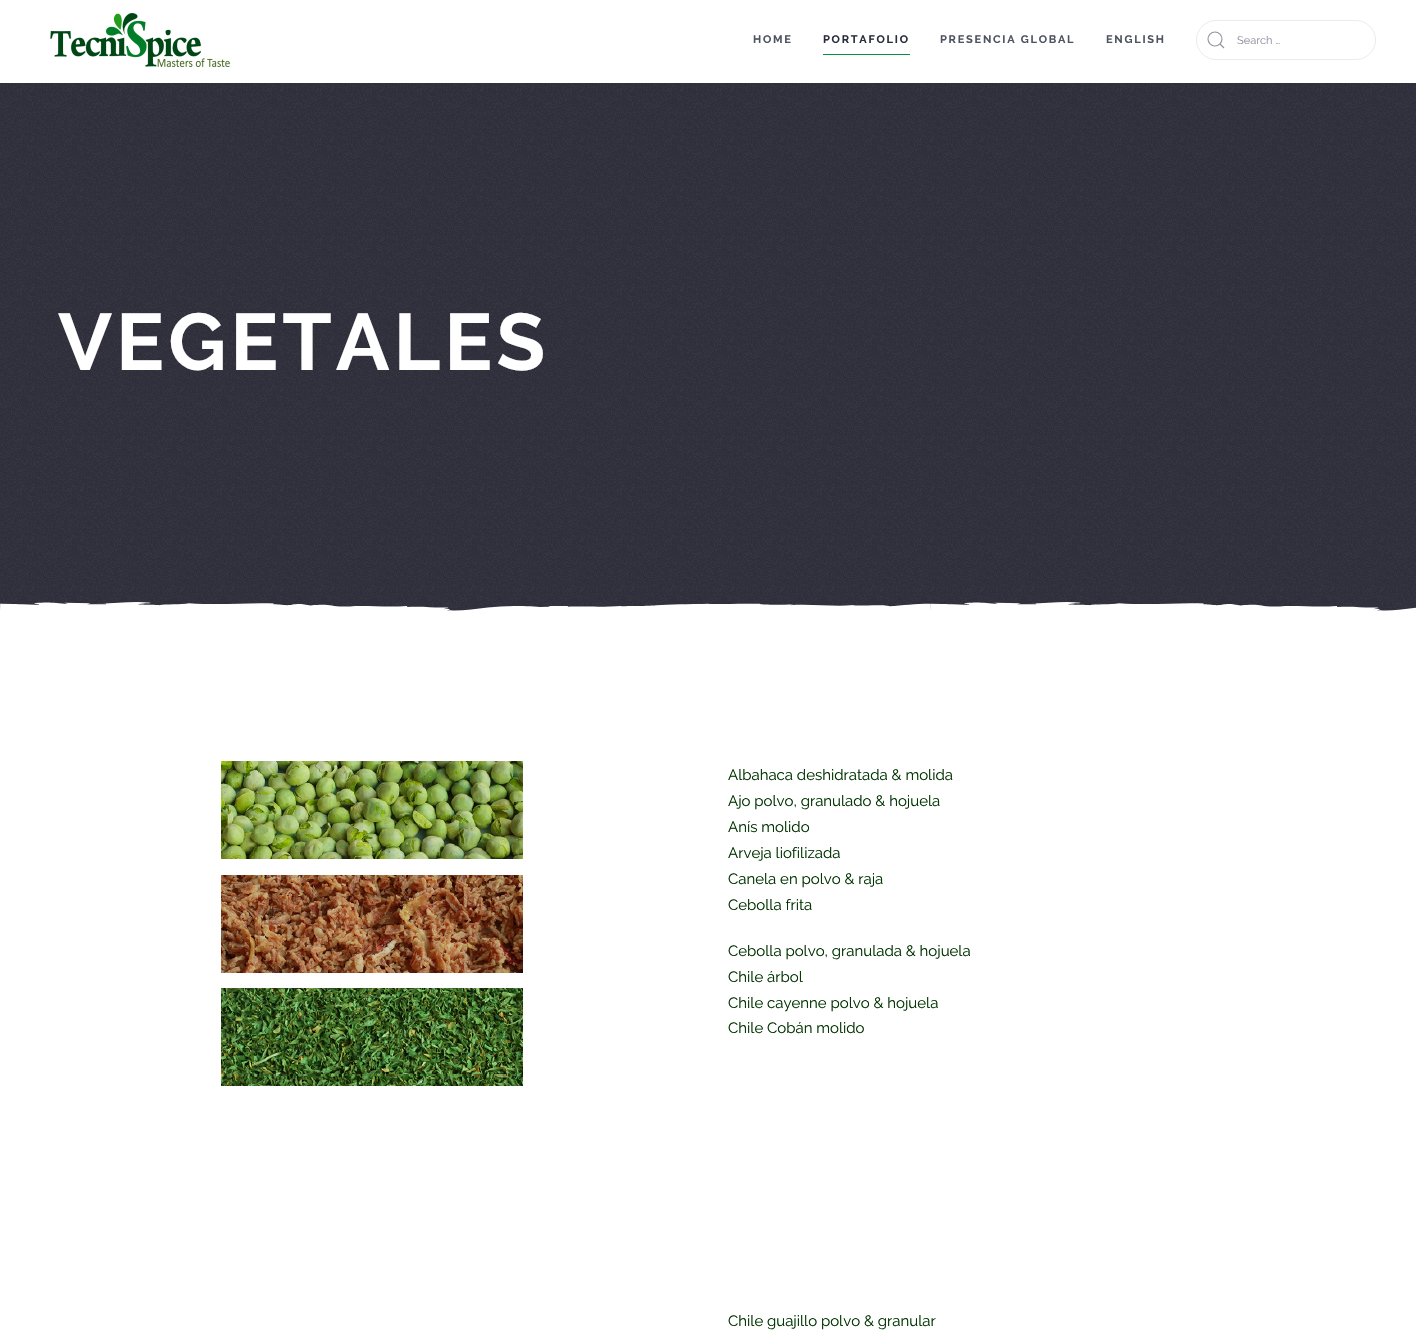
#include "include/core/SkBlurTypes.h"
#include "include/core/SkCanvas.h"
#include "include/core/SkData.h"
#include "include/core/SkFont.h"
#include "include/core/SkFontMgr.h"
#include "include/core/SkImage.h"
#include "include/core/SkMaskFilter.h"
#include "include/core/SkPaint.h"
#include "include/core/SkPathBuilder.h"
#include "include/core/SkTextBlob.h"
#include "include/effects/SkDashPathEffect.h"
#include "include/effects/SkGradientShader.h"
#include "include/utils/SkParsePath.h"

extern sk_sp<SkFontMgr> fontMgr;

void draw(SkCanvas* canvas) {
    SkPaint p;
    p.setAntiAlias(true);
    auto font = [&](const char* family, int weight, float size, bool italic = false) {
        SkFontStyle style(weight, SkFontStyle::kNormal_Width,
            italic ? SkFontStyle::kItalic_Slant : SkFontStyle::kUpright_Slant);
        SkFont result(fontMgr->matchFamilyStyle(family, style), size);
        result.setSubpixel(true);
        return result;
    };
    auto drawTracked = [&](const char* s, float x, float y, const SkFont& font, const SkPaint& ink, float letter, float word) {
        std::vector<SkGlyphID> glyphs(font.countText(s, strlen(s), SkTextEncoding::kUTF8));
        std::vector<float> xs(glyphs.size());
        font.textToGlyphs(s, strlen(s), SkTextEncoding::kUTF8, glyphs);
        font.getXPos(glyphs, xs, x);
        float extra = 0;
        for (size_t i = 0; i < glyphs.size(); i++) {
            xs[i] += extra;
            extra += letter + word * (glyphs[i] == font.unicharToGlyph(' '));
        }
        canvas->drawTextBlob(SkTextBlob::MakeFromPosHGlyphs(glyphs, xs, y, font), 0, 0, ink);
    };
    auto drawPhoto = [&](const char* path, float l, float t, float r, float b) {
        auto image = SkImages::DeferredFromEncodedData(SkData::MakeFromFileName(path));
        canvas->drawImageRect(image, SkRect::MakeLTRB(l, t, r, b), SkSamplingOptions());
    };
    canvas->clear(0xFFFFFFFF);
    drawPhoto("media/1.png", 50, 13, 230, 67);
    auto font1 = font("Raleway", 700, 11);
    p.setColor(0xFF4F5260);
    drawTracked("HOME", 753, 43, font1, p, 1.75f, 0);
    p.setColor(0xFF292C3D);
    drawTracked("PORTAFOLIO", 823, 43, font1, p, 1.75f, 0);
    p.setColor(0xFF089040);
    canvas->drawRect(SkRect::MakeLTRB(823, 54, 910, 55), p);
    p.setColor(0xFF4F5260);
    drawTracked("PRESENCIA GLOBAL", 940, 43, font1, p, 1.75f, 0);
    drawTracked("ENGLISH", 1106, 43, font1, p, 1.75f, 0);
    p.setStyle(SkPaint::kStroke_Style);
    p.setStrokeWidth(1);
    p.setColor(0xFFEBEBED);
    canvas->drawRoundRect(SkRect::MakeLTRB(1196.5f, 20.5f, 1375.5f, 59.5f), 19.5f, 19.5f, p);
    p.setStrokeWidth(1.1f);
    p.setColor(0xFF90929D);
    canvas->drawCircle(1215, 39, 7, p);
    canvas->drawPath(SkPathBuilder().moveTo(1220, 44).lineTo(1224, 48).close().detach(), p);
    auto font2 = font("Raleway", 400, 11);
    p.setStyle(SkPaint::kFill_Style);
    canvas->drawString("Search …", 1237, 44, font2, p);
    p.setColor(0xFF30303C);
    canvas->drawRect(SkRect::MakeLTRB(0, 83, 1416, 611), p);
    drawPhoto("media/2.png", 0, 83, 1416, 611);
    auto font3 = font("Raleway", 700, 80);
    p.setColor(0xFFFFFFFF);
    drawTracked("VEGETALES", 58, 370, font3, p, 4, 0);
    drawPhoto("media/3.png", 0, 602, 1416, 612);
    drawPhoto("media/4.png", 221, 761, 523, 1086);
    auto font4 = font("Raleway", 400, 15);
    p.setColor(0xFF003300);
    {
        const struct { const char* s; float x, y; } items[] = {
            {"Albahaca deshidratada & molida", 728, 780},
            {"Ajo polvo, granulado & hojuela", 728, 806},
            {"Anís molido", 728, 832},
            {"Arveja liofilizada", 728, 858},
            {"Canela en polvo & raja", 728, 884},
            {"Cebolla frita", 728, 910},
            {"Cebolla polvo, granulada & hojuela", 728, 956},
            {"Chile árbol", 728, 982},
            {"Chile cayenne polvo & hojuela", 728, 1008},
            {"Chile Cobán molido", 728, 1033},
            {"Chile guajillo polvo & granular", 728, 1326},
        };
        for (auto [s, x, y] : items) {
            canvas->drawString(s, x, y, font4, p);
        }
    }
}
